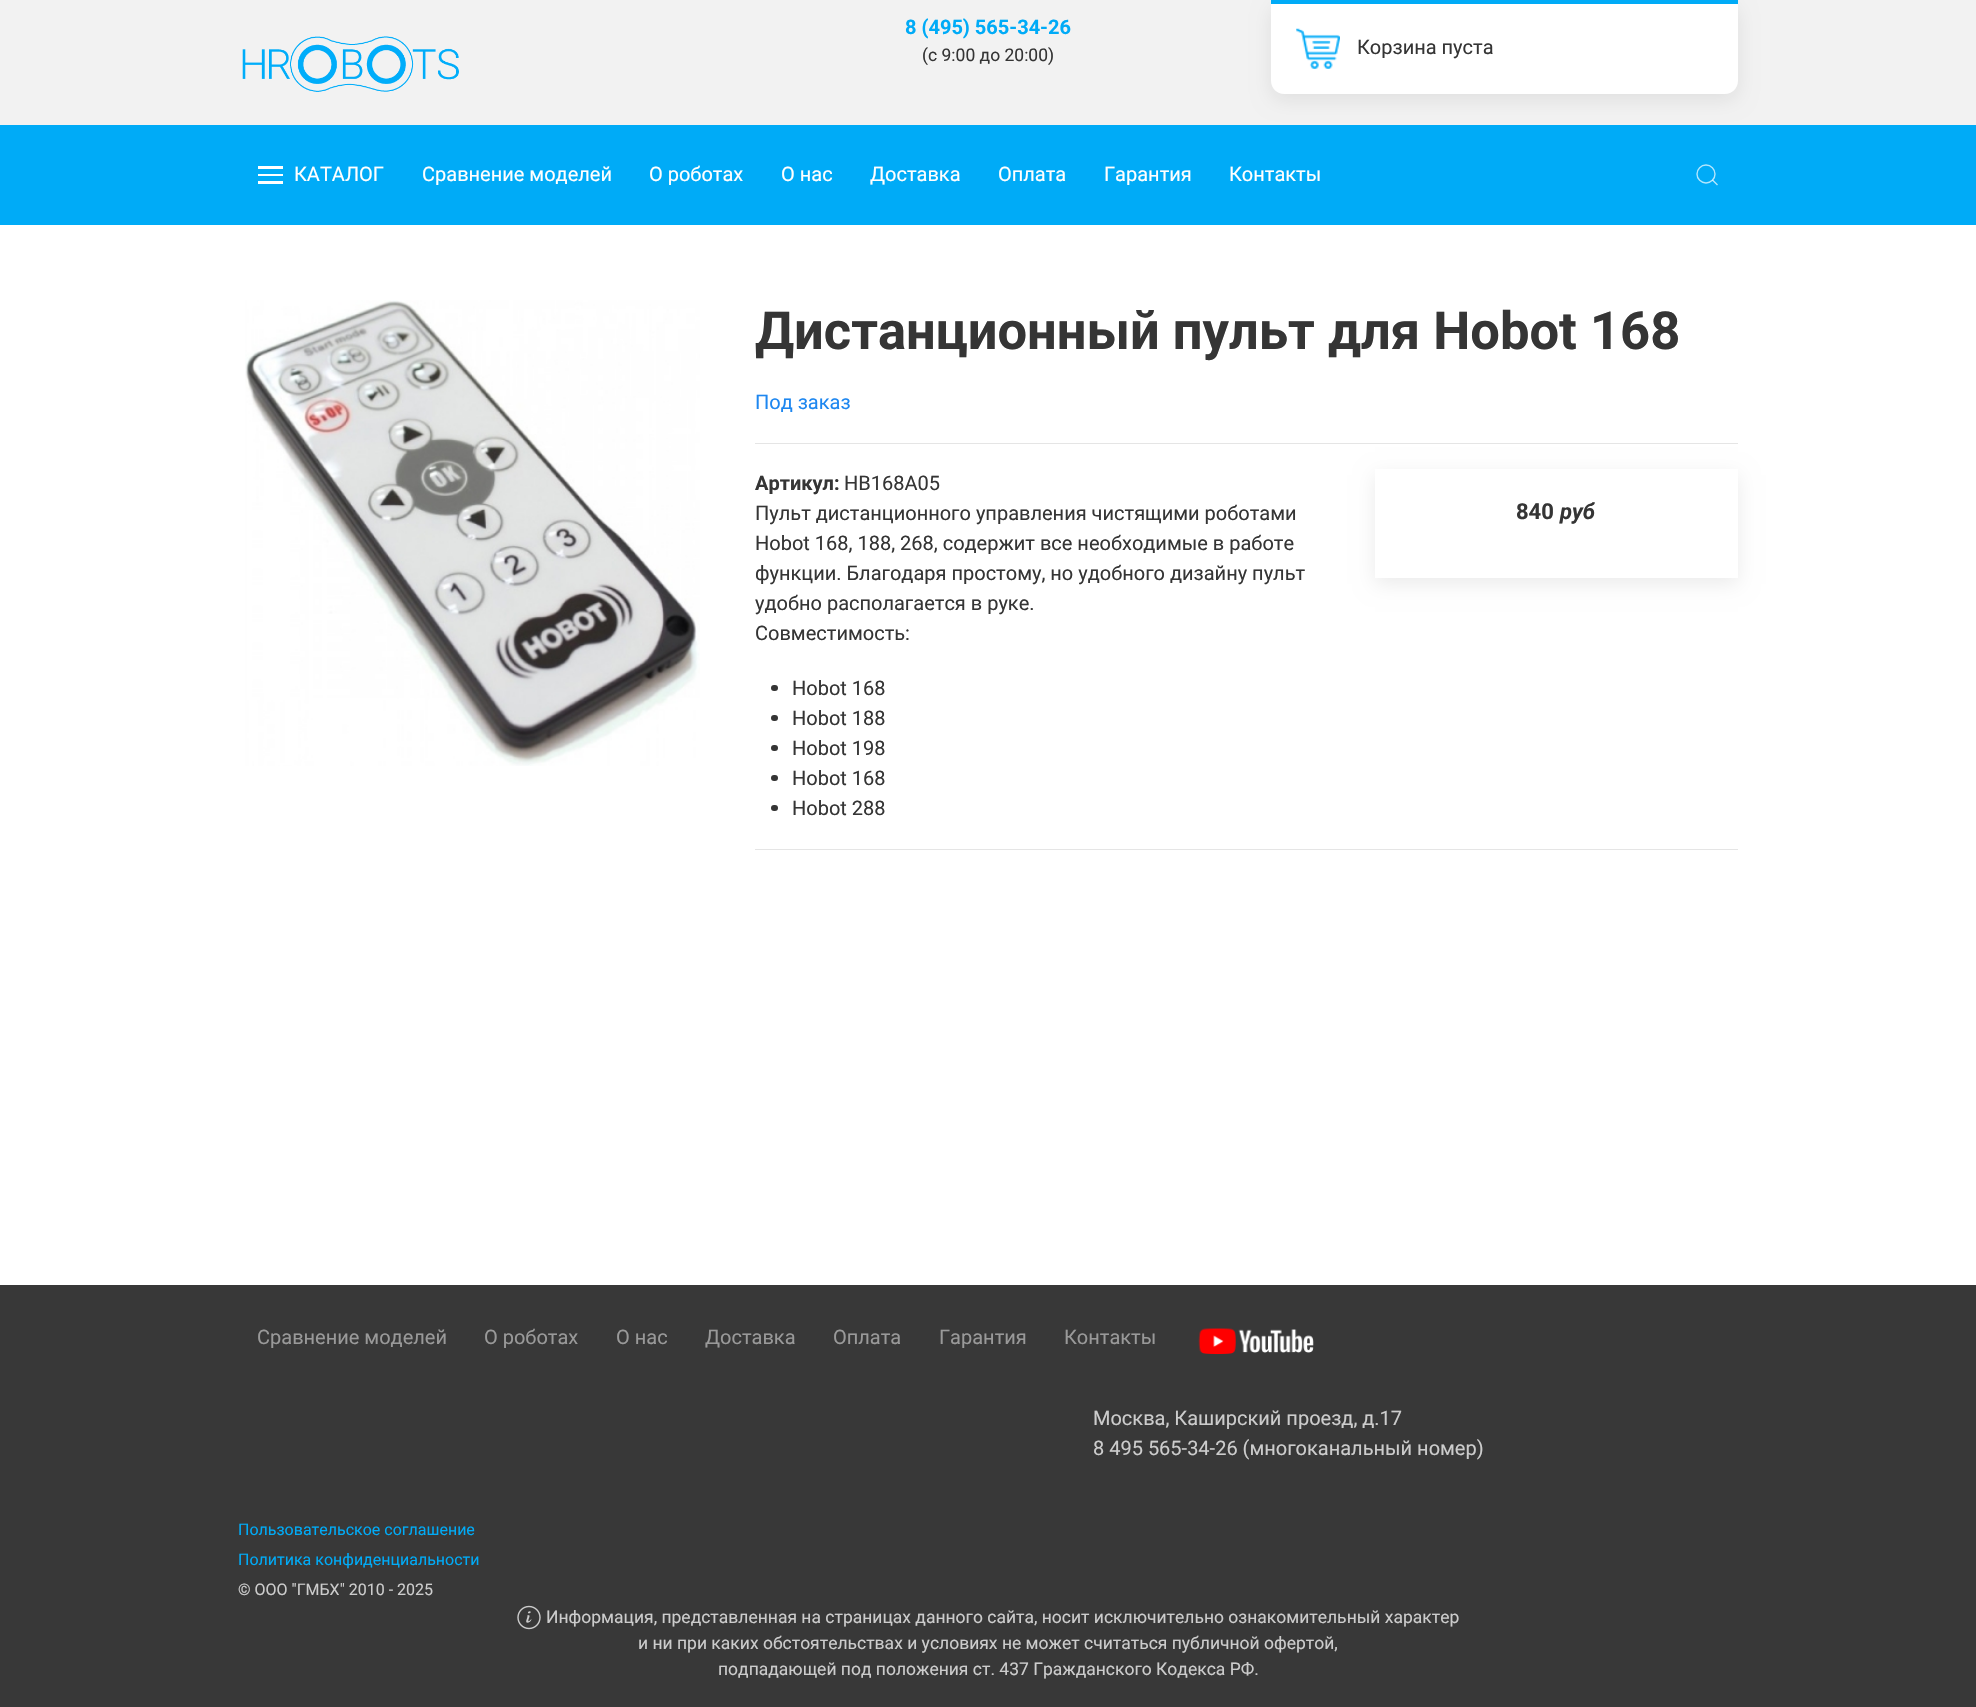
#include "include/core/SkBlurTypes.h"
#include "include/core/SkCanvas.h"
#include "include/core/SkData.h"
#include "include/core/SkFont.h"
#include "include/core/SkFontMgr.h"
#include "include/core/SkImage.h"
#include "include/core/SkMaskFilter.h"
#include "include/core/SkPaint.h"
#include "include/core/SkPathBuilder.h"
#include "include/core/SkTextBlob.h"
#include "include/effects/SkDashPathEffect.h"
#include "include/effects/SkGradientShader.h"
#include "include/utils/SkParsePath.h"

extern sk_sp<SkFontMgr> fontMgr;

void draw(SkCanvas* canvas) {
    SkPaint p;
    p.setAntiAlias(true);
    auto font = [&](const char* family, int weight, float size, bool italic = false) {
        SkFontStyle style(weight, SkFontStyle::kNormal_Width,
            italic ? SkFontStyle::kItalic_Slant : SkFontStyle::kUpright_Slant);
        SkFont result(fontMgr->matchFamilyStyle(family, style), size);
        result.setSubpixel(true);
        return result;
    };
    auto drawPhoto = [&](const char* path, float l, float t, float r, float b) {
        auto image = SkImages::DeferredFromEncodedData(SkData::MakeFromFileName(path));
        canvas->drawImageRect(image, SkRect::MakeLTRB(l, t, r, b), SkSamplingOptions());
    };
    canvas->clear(0xFFFFFFFF);
    p.setColor(0xFFF2F2F2);
    canvas->drawRect(SkRect::MakeLTRB(0, 0, 1976, 125), p);
    drawPhoto("media/1.png", 242, 36, 459, 92);
    auto font1 = font("Roboto", 700, 20);
    p.setColor(0xFF00ABF7);
    canvas->drawString("8 (495) 565-34-26", 905, 34, font1, p);
    auto font2 = font("Roboto", 400, 17.5f);
    p.setColor(0xFF353535);
    canvas->drawString("(с 9:00 до 20:00)", 922, 61, font2, p);
    p.setColor(0xFF00ABF7);
    canvas->drawRect(SkRect::MakeLTRB(0, 125, 1976, 225), p);
    p.setColor(0x14000000);
    p.setMaskFilter(SkMaskFilter::MakeBlur(kNormal_SkBlurStyle, 9.5f));
    canvas->drawRoundRect(SkRect::MakeLTRB(1271, 6, 1738, 100), 13, 13, p);
    p.setMaskFilter(nullptr);
    p.setColor(0xFFFFFFFF);
    canvas->drawPath(SkPathBuilder().moveTo(1271, 0).lineTo(1738, 0).lineTo(1738, 81).cubicTo(1738, 88, 1732, 94, 1725, 94).lineTo(1284, 94).cubicTo(1277, 94, 1271, 88, 1271, 81).close().detach(), p);
    p.setColor(0xFF00ABF7);
    canvas->drawRect(SkRect::MakeLTRB(1271, 0, 1738, 4), p);
    drawPhoto("media/2.png", 1296, 28, 1340, 69);
    auto font3 = font("Roboto", 400, 20);
    p.setColor(0xFF353535);
    canvas->drawString("Корзина пуста", 1357, 54, font3, p);
    {
        const struct { float l, t, r, b; SkColor color; } items[] = {
            {258, 166, 283, 169, 0xFFFFFFFF},
            {258, 174, 283, 176, 0xFFFFFFFF},
            {258, 181, 283, 184, 0xFFFFFFFF},
        };
        for (auto [l, t, r, b, color] : items) {
            p.setColor(color);
            canvas->drawRect(SkRect::MakeLTRB(l, t, r, b), p);
        }
    }
    {
        const struct { const char* s; float x, y; } items[] = {
            {"КАТАЛОГ", 294, 181},
            {"Сравнение моделей", 422, 181},
            {"О роботах", 649, 181},
            {"О нас", 781, 181},
            {"Доставка", 870, 181},
            {"Оплата", 998, 181},
            {"Гарантия", 1104, 181},
            {"Контакты", 1229, 181},
        };
        for (auto [s, x, y] : items) {
            canvas->drawString(s, x, y, font3, p);
        }
    }
    p.setStyle(SkPaint::kStroke_Style);
    p.setStrokeWidth(1.4f);
    p.setColor(0xFFB3E6FD);
    canvas->drawCircle(1706, 174, 9, p);
    p.setColor(0xB3FFFFFF);
    canvas->drawPath(SkPathBuilder().moveTo(1712.5f, 180).lineTo(1717.5f, 185).close().detach(), p);
    drawPhoto("media/3.png", 245, 300, 700, 766);
    auto font4 = font("Roboto", 700, 52.5f);
    p.setStyle(SkPaint::kFill_Style);
    p.setColor(0xFF353535);
    canvas->drawString("Дистанционный пульт для Hobot 168", 755, 349, font4, p);
    p.setColor(0xFF1E87F0);
    canvas->drawString("Под заказ", 755, 409, font3, p);
    p.setColor(0xFFE5E5E5);
    canvas->drawRect(SkRect::MakeLTRB(755, 443, 1738, 444), p);
    p.setColor(0xFF353535);
    canvas->drawString("Артикул:", 755, 490, font1, p);
    {
        const struct { const char* s; float x, y; } items[] = {
            {"HB168A05", 844, 490},
            {"Пульт дистанционного управления чистящими роботами", 755, 520},
            {"Hobot 168, 188, 268, содержит все необходимые в работе", 755, 550},
            {"функции. Благодаря простому, но удобного дизайну пульт", 755, 580},
            {"удобно располагается в руке.", 755, 610},
            {"Совместимость:", 755, 640},
        };
        for (auto [s, x, y] : items) {
            canvas->drawString(s, x, y, font3, p);
        }
    }
    canvas->drawRoundRect(SkRect::MakeLTRB(771, 685, 778, 691), 3, 3, p);
    canvas->drawString("Hobot 168", 792, 695, font3, p);
    canvas->drawRoundRect(SkRect::MakeLTRB(771, 715, 778, 721), 3, 3, p);
    canvas->drawString("Hobot 188", 792, 725, font3, p);
    canvas->drawRoundRect(SkRect::MakeLTRB(771, 745, 778, 751), 3, 3, p);
    canvas->drawString("Hobot 198", 792, 755, font3, p);
    canvas->drawRoundRect(SkRect::MakeLTRB(771, 775, 778, 781), 3, 3, p);
    canvas->drawString("Hobot 168", 792, 785, font3, p);
    canvas->drawRoundRect(SkRect::MakeLTRB(771, 805, 778, 811), 3, 3, p);
    canvas->drawString("Hobot 288", 792, 815, font3, p);
    p.setColor(0x14000000);
    p.setMaskFilter(SkMaskFilter::MakeBlur(kNormal_SkBlurStyle, 9.5f));
    canvas->drawRect(SkRect::MakeLTRB(1375, 475, 1738, 584), p);
    p.setMaskFilter(nullptr);
    p.setColor(0xFFFFFFFF);
    canvas->drawRect(SkRect::MakeLTRB(1375, 469, 1738, 578), p);
    auto font5 = font("Roboto", 700, 22);
    p.setColor(0xFF353535);
    canvas->drawString("840", 1516, 519, font5, p);
    auto font6 = font("Roboto", 700, 22, true);
    canvas->drawString("руб", 1560, 519, font6, p);
    p.setColor(0xFFE5E5E5);
    canvas->drawRect(SkRect::MakeLTRB(755, 849, 1738, 850), p);
    p.setColor(0xFF383838);
    canvas->drawRect(SkRect::MakeLTRB(0, 1285, 1976, 1707), p);
    p.setColor(0xFF999999);
    {
        const struct { const char* s; float x, y; } items[] = {
            {"Сравнение моделей", 257, 1344},
            {"О роботах", 484, 1344},
            {"О нас", 616, 1344},
            {"Доставка", 705, 1344},
            {"Оплата", 833, 1344},
            {"Гарантия", 939, 1344},
            {"Контакты", 1064, 1344},
        };
        for (auto [s, x, y] : items) {
            canvas->drawString(s, x, y, font3, p);
        }
    }
    drawPhoto("media/4.png", 1198, 1328, 1314, 1355);
    p.setColor(0xFFCCCCCC);
    canvas->drawString("Москва, Каширский проезд, д.17", 1093, 1425, font3, p);
    canvas->drawString("8 495 565-34-26 (многоканальный номер)", 1093, 1455, font3, p);
    auto font7 = font("Roboto", 400, 16);
    p.setColor(0xFF00ABF7);
    canvas->drawString("Пользовательское соглашение", 238, 1535, font7, p);
    canvas->drawString("Политика конфиденциальности", 238, 1565, font7, p);
    p.setColor(0xFFCCCCCC);
    canvas->drawString("© ООО \"ГМБХ\" 2010 - 2025", 238, 1595, font7, p);
    drawPhoto("media/5.png", 517, 1605, 541, 1630);
    {
        const struct { const char* s; float x, y; } items[] = {
            {"Информация, представленная на страницах данного сайта, носит исключительно ознакомительный характер", 546, 1623},
            {"и ни при каких обстоятельствах и условиях не может считаться публичной офертой,", 638, 1649},
            {"подпадающей под положения ст. 437 Гражданского Кодекса РФ.", 718, 1675},
        };
        for (auto [s, x, y] : items) {
            canvas->drawString(s, x, y, font2, p);
        }
    }
}
